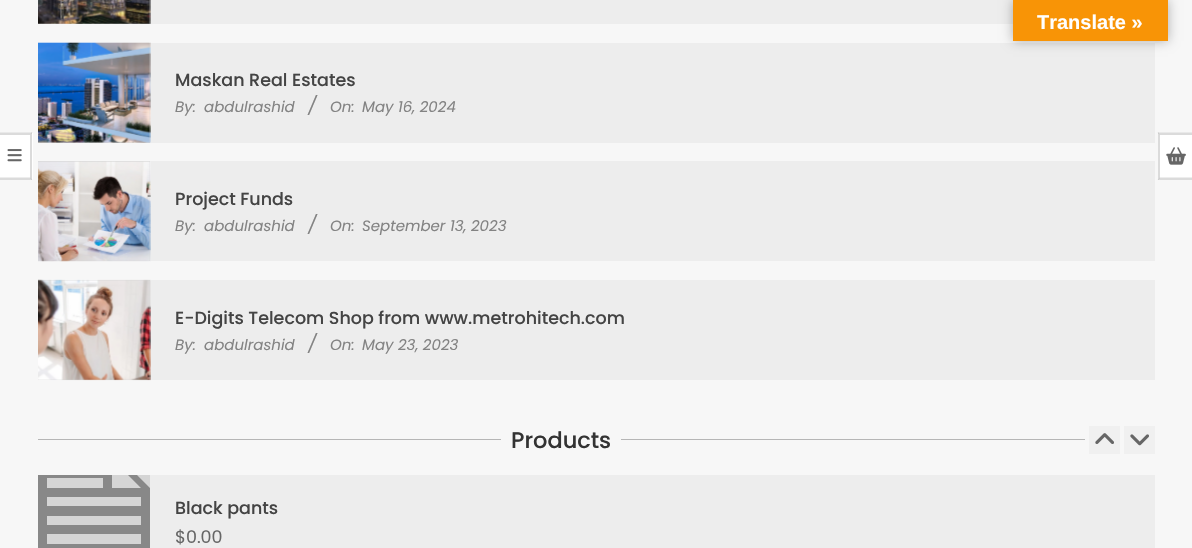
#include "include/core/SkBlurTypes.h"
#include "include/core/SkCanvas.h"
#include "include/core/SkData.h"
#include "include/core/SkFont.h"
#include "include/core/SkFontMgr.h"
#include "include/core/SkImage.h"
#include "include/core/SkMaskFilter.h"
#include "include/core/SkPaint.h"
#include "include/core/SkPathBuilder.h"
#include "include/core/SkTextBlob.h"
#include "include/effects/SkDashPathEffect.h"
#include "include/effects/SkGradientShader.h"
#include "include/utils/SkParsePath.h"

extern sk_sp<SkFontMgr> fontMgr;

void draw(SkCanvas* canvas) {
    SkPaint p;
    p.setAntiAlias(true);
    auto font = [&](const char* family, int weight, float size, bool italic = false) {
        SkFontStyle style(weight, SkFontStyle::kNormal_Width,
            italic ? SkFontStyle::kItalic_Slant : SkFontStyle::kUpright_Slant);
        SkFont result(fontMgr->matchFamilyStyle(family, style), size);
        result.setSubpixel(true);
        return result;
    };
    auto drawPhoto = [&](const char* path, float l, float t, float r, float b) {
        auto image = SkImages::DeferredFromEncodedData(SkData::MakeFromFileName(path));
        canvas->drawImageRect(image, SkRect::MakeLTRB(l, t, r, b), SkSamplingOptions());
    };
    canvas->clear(0xFFF7F7F7);
    p.setColor(0xFFEDEDED);
    canvas->drawRect(SkRect::MakeLTRB(150, 0, 1013, 24), p);
    canvas->drawRect(SkRect::MakeLTRB(150, 43, 1155, 143), p);
    p.setColor(0x4D000000);
    p.setMaskFilter(SkMaskFilter::MakeBlur(kNormal_SkBlurStyle, 5.5f));
    canvas->drawRect(SkRect::MakeLTRB(1013, 0, 1168, 41), p);
    p.setMaskFilter(nullptr);
    p.setColor(0xFFF89406);
    canvas->drawRect(SkRect::MakeLTRB(1013, 0, 1168, 41), p);
    auto font1 = font("Liberation Sans", 700, 20);
    p.setColor(0xFFFFFFFF);
    canvas->drawString("Translate »", 1037, 29, font1, p);
    canvas->drawRect(SkRect::MakeLTRB(0, 133, 33, 180), p);
    p.setColor(0xFFDBDBDB);
    canvas->drawPath(SkPathBuilder().moveTo(0, 132.5f).lineTo(32.5f, 132.5f).lineTo(30, 135).lineTo(0, 135).close().detach(), p);
    p.setColor(0x24000000);
    canvas->drawPath(SkPathBuilder().moveTo(32, 132).lineTo(32, 180).lineTo(30, 178).lineTo(30, 135).close().detach(), p);
    canvas->drawPath(SkPathBuilder().moveTo(32.5f, 180).lineTo(0, 180).lineTo(0, 177.5f).lineTo(30, 177.5f).close().detach(), p);
    drawPhoto("media/1.png", 7, 149, 22, 162);
    p.setColor(0xFFD5D5D5);
    canvas->drawRect(SkRect::MakeLTRB(38, 0, 150, 24), p);
    drawPhoto("media/2.png", 38, 0, 151, 24);
    canvas->drawRect(SkRect::MakeLTRB(38, 43, 150, 143), p);
    drawPhoto("media/3.png", 38, 42, 151, 143);
    auto font2 = font("Poppins", 500, 17.5f);
    p.setColor(0xFF444444);
    canvas->drawString("Maskan Real Estates", 175, 86, font2, p);
    auto font3 = font("Poppins", 400, 15, true);
    p.setColor(0xFF838383);
    canvas->drawString("By:", 175, 112, font3, p);
    canvas->drawString("abdulrashid", 204, 112, font3, p);
    auto font4 = font("Poppins", 400, 18, true);
    canvas->drawString("/", 308, 112, font4, p);
    canvas->drawString("On:", 330, 112, font3, p);
    canvas->drawString("May 16, 2024", 362, 112, font3, p);
    p.setColor(0xFFEDEDED);
    canvas->drawRect(SkRect::MakeLTRB(150, 161, 1155, 261), p);
    p.setColor(0xFFD5D5D5);
    canvas->drawRect(SkRect::MakeLTRB(38, 161, 150, 261), p);
    drawPhoto("media/4.png", 38, 161, 151, 262);
    p.setColor(0xFF444444);
    canvas->drawString("Project Funds", 175, 205, font2, p);
    p.setColor(0xFF838383);
    canvas->drawString("By:", 175, 231, font3, p);
    canvas->drawString("abdulrashid", 204, 231, font3, p);
    canvas->drawString("/", 308, 231, font4, p);
    canvas->drawString("On:", 330, 231, font3, p);
    canvas->drawString("September 13, 2023", 362, 231, font3, p);
    p.setColor(0xFFEDEDED);
    canvas->drawRect(SkRect::MakeLTRB(150, 280, 1155, 380), p);
    p.setColor(0xFFD5D5D5);
    canvas->drawRect(SkRect::MakeLTRB(38, 280, 150, 380), p);
    drawPhoto("media/5.png", 38, 279, 151, 381);
    p.setColor(0xFF444444);
    canvas->drawString("E-Digits Telecom Shop from www.metrohitech.com", 175, 324, font2, p);
    p.setColor(0xFF838383);
    canvas->drawString("By:", 175, 350, font3, p);
    canvas->drawString("abdulrashid", 204, 350, font3, p);
    canvas->drawString("/", 308, 350, font4, p);
    canvas->drawString("On:", 330, 350, font3, p);
    canvas->drawString("May 23, 2023", 362, 350, font3, p);
    p.setColor(0xFFB6B6B6);
    canvas->drawRect(SkRect::MakeLTRB(38, 439, 501, 440), p);
    auto font5 = font("Poppins", 500, 22.5f);
    p.setColor(0xFF333333);
    canvas->drawString("Products", 511, 448, font5, p);
    p.setColor(0xFFB6B6B6);
    canvas->drawRect(SkRect::MakeLTRB(621, 439, 1085, 440), p);
    p.setColor(0xFFF0F0F0);
    canvas->drawRect(SkRect::MakeLTRB(1089, 426, 1120, 454), p);
    drawPhoto("media/6.png", 1095, 433, 1114, 444);
    canvas->drawRect(SkRect::MakeLTRB(1124, 426, 1155, 454), p);
    drawPhoto("media/7.png", 1130, 434, 1149, 446);
    p.setColor(0xFFEDEDED);
    canvas->drawRect(SkRect::MakeLTRB(150, 475, 1155, 548), p);
    p.setColor(0xFFD5D5D5);
    canvas->drawRect(SkRect::MakeLTRB(47, 475, 150, 544), p);
    canvas->save();
    canvas->clipRect(SkRect::MakeLTRB(38, 475, 150, 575));
    p.setColor(0xFF888888);
    canvas->drawPath(SkPathBuilder().moveTo(112, 450).lineTo(38, 450).lineTo(38, 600).lineTo(150, 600).lineTo(150, 488).close().moveTo(47, 459).lineTo(103, 459).lineTo(103, 469).lineTo(47, 469).close().moveTo(47, 478).lineTo(103, 478).lineTo(103, 488).lineTo(47, 488).close().moveTo(103, 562).lineTo(47, 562).lineTo(47, 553).lineTo(103, 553).close().moveTo(141, 544).lineTo(47, 544).lineTo(47, 534).lineTo(141, 534).close().moveTo(141, 525).lineTo(47, 525).lineTo(47, 516).lineTo(141, 516).close().moveTo(141, 506).lineTo(47, 506).lineTo(47, 497).lineTo(141, 497).close().moveTo(112, 488).lineTo(112, 459).lineTo(141, 488).close().detach(), p);
    canvas->restore();
    p.setColor(0xFF444444);
    canvas->drawString("Black pants", 175, 514, font2, p);
    auto font6 = font("Poppins", 400, 17.5f);
    p.setColor(0xFF666666);
    canvas->drawString("$0.00", 175, 543, font6, p);
    p.setColor(0xFFFFFFFF);
    canvas->drawRect(SkRect::MakeLTRB(1158, 133, 1192, 180), p);
    p.setColor(0xFFDBDBDB);
    canvas->drawPath(SkPathBuilder().moveTo(1157.5f, 132.5f).lineTo(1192.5f, 132.5f).lineTo(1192.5f, 135).lineTo(1160, 135).close().moveTo(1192.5f, 180).lineTo(1157.5f, 180).lineTo(1160, 177.5f).lineTo(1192.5f, 177.5f).close().detach(), p);
    p.setColor(0x24000000);
    canvas->drawPath(SkPathBuilder().moveTo(1158, 180).lineTo(1158, 132).lineTo(1160, 135).lineTo(1160, 178).close().detach(), p);
    drawPhoto("media/8.png", 1166, 147, 1186, 165);
}
